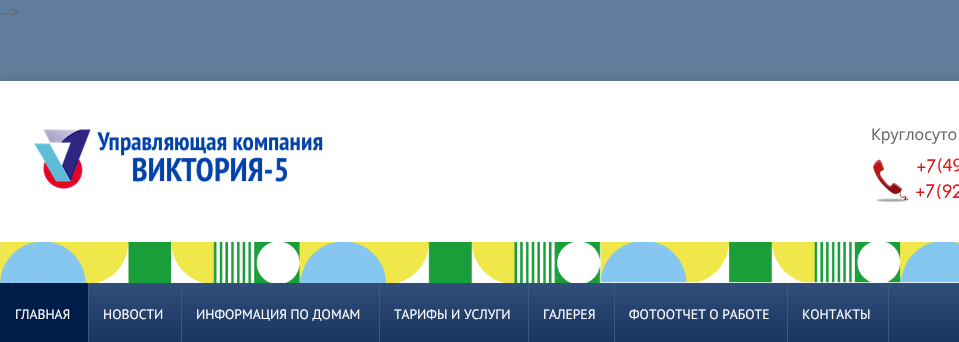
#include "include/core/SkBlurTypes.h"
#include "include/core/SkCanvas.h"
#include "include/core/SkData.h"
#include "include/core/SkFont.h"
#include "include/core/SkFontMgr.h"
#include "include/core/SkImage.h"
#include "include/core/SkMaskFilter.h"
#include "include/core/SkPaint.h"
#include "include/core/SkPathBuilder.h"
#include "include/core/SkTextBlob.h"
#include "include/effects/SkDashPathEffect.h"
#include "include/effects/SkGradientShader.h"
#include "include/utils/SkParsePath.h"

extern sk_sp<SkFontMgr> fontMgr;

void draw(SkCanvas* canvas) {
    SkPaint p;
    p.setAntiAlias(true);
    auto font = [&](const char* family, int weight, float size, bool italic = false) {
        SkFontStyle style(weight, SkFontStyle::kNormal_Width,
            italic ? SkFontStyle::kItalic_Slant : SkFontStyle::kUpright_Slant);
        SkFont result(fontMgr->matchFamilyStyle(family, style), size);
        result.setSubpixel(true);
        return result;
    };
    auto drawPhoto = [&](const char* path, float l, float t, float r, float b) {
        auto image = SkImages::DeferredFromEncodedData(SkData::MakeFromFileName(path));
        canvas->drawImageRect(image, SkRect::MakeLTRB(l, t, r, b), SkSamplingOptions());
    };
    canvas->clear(0xFF607D9B);
    auto font1 = font("Open Sans", 400, 16);
    p.setColor(0xFF666666);
    canvas->drawString("-->", 0, 18, font1, p);
    p.setColor(0x1F000000);
    p.setMaskFilter(SkMaskFilter::MakeBlur(kNormal_SkBlurStyle, 5));
    canvas->drawRect(SkRect::MakeLTRB(0, 81, 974, 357), p);
    p.setMaskFilter(nullptr);
    p.setColor(0xFFFFFFFF);
    canvas->drawRect(SkRect::MakeLTRB(0, 81, 959, 283), p);
    drawPhoto("media/1.png", 34, 129, 323, 189);
    p.setColor(0xFF666666);
    canvas->drawString("Круглосуто", 871, 140, font1, p);
    drawPhoto("media/2.png", 873, 159, 909, 203);
    drawPhoto("media/3.png", 917, 158, 959, 173);
    drawPhoto("media/4.png", 916, 184, 959, 199);
    drawPhoto("media/5.png", 0, 242, 959, 283);
    {
        const SkColor colors[] = {0xFF314E7A, 0xFF183561};
        const float stops[] = {0, 1};
        const SkPoint ends[] = {{600, 283}, {600, 342}};
        p.setShader(SkGradientShader::MakeLinear(ends, colors, stops, 2, SkTileMode::kClamp));
        p.setAlpha(255);
    }
    canvas->drawRect(SkRect::MakeLTRB(89, 283, 959, 342), p);
    p.setShader(nullptr);
    p.setColor(0xFF3B5884);
    canvas->drawRect(SkRect::MakeLTRB(88, 283, 89, 342), p);
    p.setColor(0xFF001C48);
    canvas->drawRect(SkRect::MakeLTRB(0, 283, 88, 342), p);
    auto font2 = font("PT Sans", 400, 13.6f);
    p.setColor(0xFFFFFFFF);
    canvas->drawString("ГЛАВНАЯ", 15, 319, font2, p);
    p.setColor(0xFF3B5884);
    canvas->drawRect(SkRect::MakeLTRB(181, 283, 182, 342), p);
    p.setColor(0xFFFFFFFF);
    canvas->drawString("НОВОСТИ", 103, 319, font2, p);
    p.setColor(0xFF3B5884);
    canvas->drawRect(SkRect::MakeLTRB(379, 283, 380, 342), p);
    p.setColor(0xFFFFFFFF);
    canvas->drawString("ИНФОРМАЦИЯ ПО ДОМАМ", 196, 319, font2, p);
    p.setColor(0xFF3B5884);
    canvas->drawRect(SkRect::MakeLTRB(528, 283, 529, 342), p);
    p.setColor(0xFFFFFFFF);
    canvas->drawString("ТАРИФЫ И УСЛУГИ", 394, 319, font2, p);
    p.setColor(0xFF3B5884);
    canvas->drawRect(SkRect::MakeLTRB(614, 283, 615, 342), p);
    p.setColor(0xFFFFFFFF);
    canvas->drawString("ГАЛЕРЕЯ", 543, 319, font2, p);
    p.setColor(0xFF3B5884);
    canvas->drawRect(SkRect::MakeLTRB(787, 283, 788, 342), p);
    p.setColor(0xFFFFFFFF);
    canvas->drawString("ФОТООТЧЕТ О РАБОТЕ", 629, 319, font2, p);
    p.setColor(0xFF3B5884);
    canvas->drawRect(SkRect::MakeLTRB(888, 283, 889, 342), p);
    p.setColor(0xFFFFFFFF);
    canvas->drawString("КОНТАКТЫ", 802, 319, font2, p);
}
